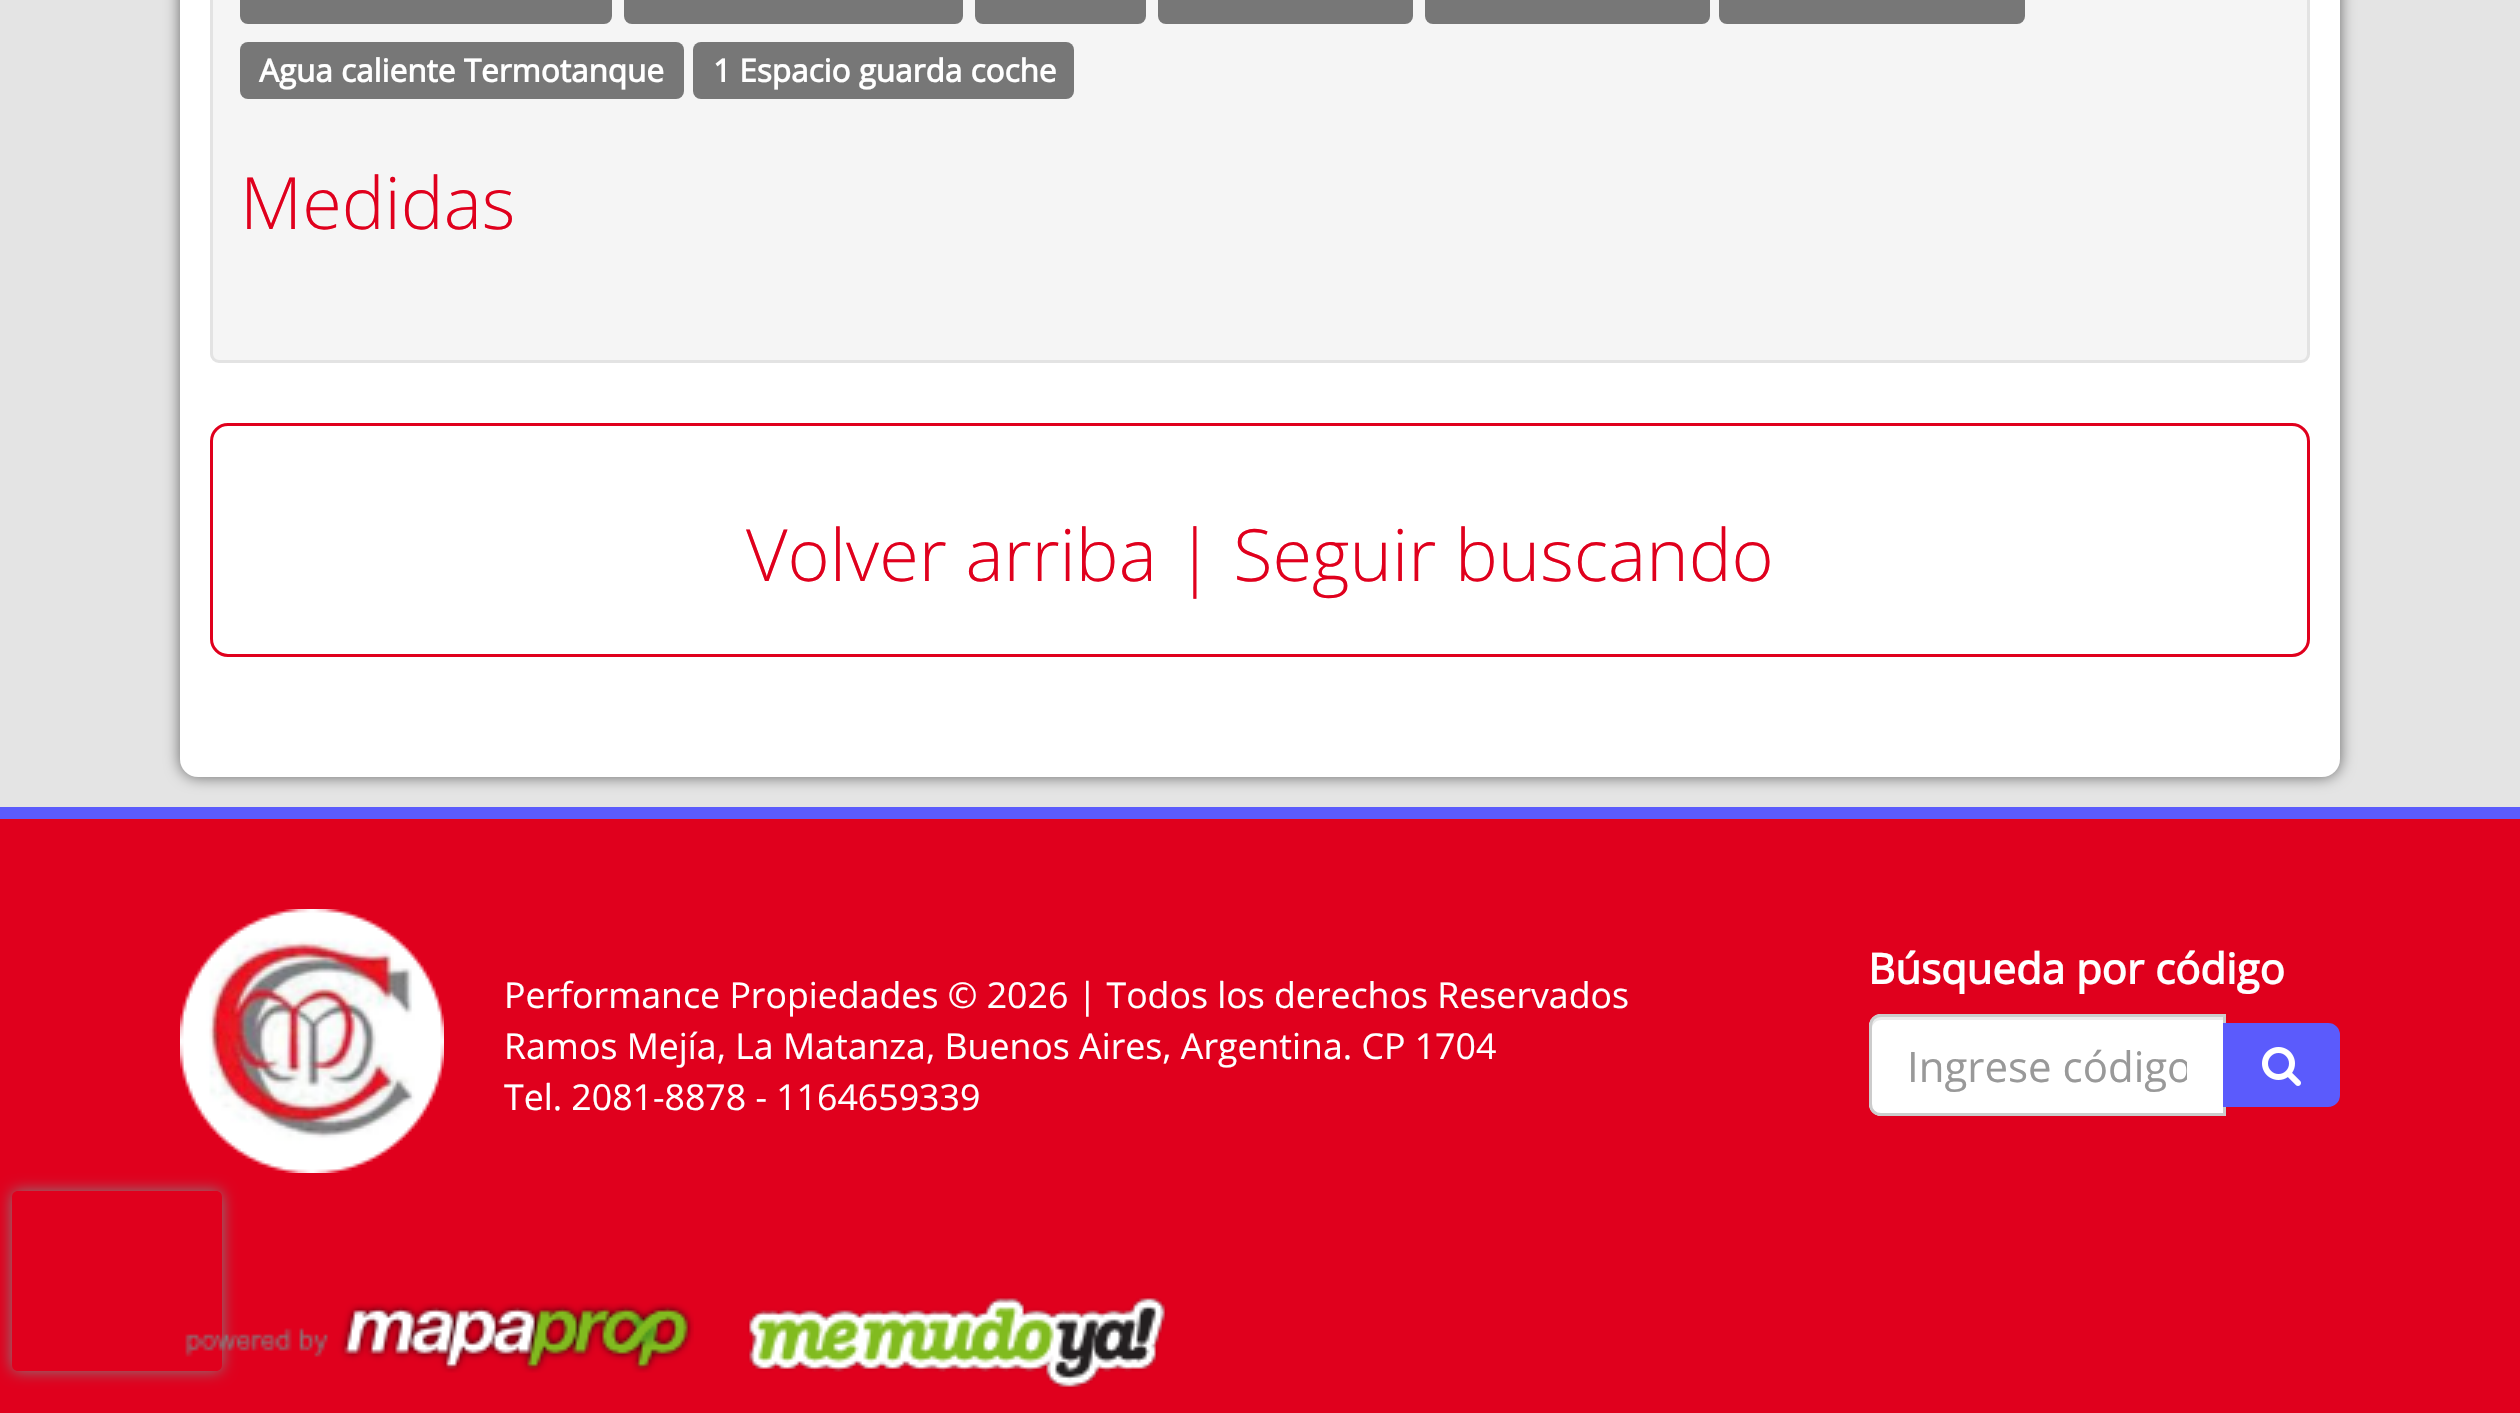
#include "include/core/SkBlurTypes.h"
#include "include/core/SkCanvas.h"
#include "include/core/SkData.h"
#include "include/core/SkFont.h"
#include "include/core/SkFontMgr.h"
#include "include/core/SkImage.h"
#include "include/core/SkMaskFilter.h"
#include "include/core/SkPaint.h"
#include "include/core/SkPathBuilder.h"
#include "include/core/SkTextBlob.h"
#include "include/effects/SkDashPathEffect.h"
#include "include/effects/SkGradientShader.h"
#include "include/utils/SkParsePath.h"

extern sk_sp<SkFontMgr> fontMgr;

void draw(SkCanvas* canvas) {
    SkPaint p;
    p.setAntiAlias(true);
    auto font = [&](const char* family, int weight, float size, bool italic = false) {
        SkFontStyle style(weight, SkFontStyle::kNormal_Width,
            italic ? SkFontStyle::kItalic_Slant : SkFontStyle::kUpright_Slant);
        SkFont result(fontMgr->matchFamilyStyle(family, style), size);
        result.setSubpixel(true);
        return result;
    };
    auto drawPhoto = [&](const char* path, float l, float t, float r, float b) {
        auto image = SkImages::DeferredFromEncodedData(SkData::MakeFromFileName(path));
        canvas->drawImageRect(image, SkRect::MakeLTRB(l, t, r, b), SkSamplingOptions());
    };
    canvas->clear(0xFFE4E4E4);
    p.setColor(0xFF666666);
    p.setMaskFilter(SkMaskFilter::MakeBlur(kNormal_SkBlurStyle, 7.5f));
    canvas->drawRoundRect(SkRect::MakeLTRB(180, -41, 2340, 777), 18, 18, p);
    p.setMaskFilter(nullptr);
    p.setColor(0xFFFFFFFF);
    canvas->drawRoundRect(SkRect::MakeLTRB(180, -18, 2340, 777), 18, 18, p);
    p.setColor(0xFFF5F5F5);
    canvas->drawRoundRect(SkRect::MakeLTRB(211.5f, -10.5f, 2308.5f, 361.5f), 7.5f, 7.5f, p);
    p.setStyle(SkPaint::kStroke_Style);
    p.setStrokeWidth(3);
    p.setColor(0xFFE3E3E3);
    canvas->drawRoundRect(SkRect::MakeLTRB(211.5f, -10.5f, 2308.5f, 361.5f), 7.5f, 7.5f, p);
    p.setStyle(SkPaint::kFill_Style);
    p.setColor(0xFF777777);
    canvas->drawRoundRect(SkRect::MakeLTRB(240, -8, 612, 24), 8, 8, p);
    canvas->drawRoundRect(SkRect::MakeLTRB(624, -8, 963, 24), 8, 8, p);
    canvas->drawRoundRect(SkRect::MakeLTRB(975, -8, 1146, 24), 8, 8, p);
    canvas->drawRoundRect(SkRect::MakeLTRB(1158, -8, 1413, 24), 8, 8, p);
    canvas->drawRoundRect(SkRect::MakeLTRB(1425, -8, 1710, 24), 8, 8, p);
    canvas->drawRoundRect(SkRect::MakeLTRB(1719, -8, 2025, 24), 8, 8, p);
    canvas->drawRoundRect(SkRect::MakeLTRB(240, 42, 684, 99), 8, 8, p);
    auto font1 = font("Open Sans", 700, 31.5f);
    p.setColor(0xFFFFFFFF);
    canvas->drawString("Agua caliente Termotanque", 259, 82, font1, p);
    p.setColor(0xFF777777);
    canvas->drawRoundRect(SkRect::MakeLTRB(693, 42, 1074, 99), 8, 8, p);
    p.setColor(0xFFFFFFFF);
    canvas->drawString("1 Espacio guarda coche", 713, 82, font1, p);
    auto font2 = font("Open Sans", 300, 72);
    p.setColor(0xFFE0001D);
    canvas->drawString("Medidas", 240, 229, font2, p);
    p.setStyle(SkPaint::kStroke_Style);
    canvas->drawRoundRect(SkRect::MakeLTRB(211.5f, 424.5f, 2308.5f, 655.5f), 16.5f, 16.5f, p);
    p.setStyle(SkPaint::kFill_Style);
    canvas->drawString("Volver arriba | Seguir buscando", 746, 581, font2, p);
    canvas->drawRect(SkRect::MakeLTRB(0, 819, 2520, 1413), p);
    p.setColor(0xFF5B5BFC);
    canvas->drawRect(SkRect::MakeLTRB(0, 807, 2520, 819), p);
    drawPhoto("media/1.png", 180, 909, 444, 1173);
    auto font3 = font("Open Sans", 400, 35.7f);
    p.setColor(0xFFFFFFFF);
    {
        const struct { const char* s; float x, y; } items[] = {
            {"Performance Propiedades © 2026 | Todos los derechos Reservados", 504, 1008},
            {"Ramos Mejía, La Matanza, Buenos Aires, Argentina. CP 1704", 504, 1059},
            {"Tel. 2081-8878 - 1164659339", 504, 1110},
        };
        for (auto [s, x, y] : items) {
            canvas->drawString(s, x, y, font3, p);
        }
    }
    auto font4 = font("Open Sans", 700, 42);
    canvas->drawString("Búsqueda por código", 1868, 984, font4, p);
    canvas->drawPath(SkPathBuilder().moveTo(1881, 1014).lineTo(2226, 1014).lineTo(2226, 1116).lineTo(1881, 1116).cubicTo(1874.5f, 1116, 1869, 1110.5f, 1869, 1104).lineTo(1869, 1026).cubicTo(1869, 1019.5f, 1874.5f, 1014, 1881, 1014).close().detach(), p);
    p.setColor(0xFFECECEC);
    canvas->drawPath(SkPathBuilder().moveTo(1881, 1020).lineTo(2223, 1020).lineTo(2223, 1017).lineTo(1881, 1017).cubicTo(1876, 1017, 1872, 1021, 1872, 1026).lineTo(1872, 1029).cubicTo(1872, 1024, 1876, 1020, 1881, 1020).close().detach(), p);
    p.setStyle(SkPaint::kStroke_Style);
    p.setColor(0xFFCCCCCC);
    canvas->drawPath(SkPathBuilder().moveTo(1881, 1015.5f).lineTo(2224.5f, 1015.5f).lineTo(2224.5f, 1114.5f).lineTo(1881, 1114.5f).cubicTo(1875, 1114.5f, 1870.5f, 1110, 1870.5f, 1104).lineTo(1870.5f, 1026).cubicTo(1870.5f, 1020, 1875, 1015.5f, 1881, 1015.5f).close().detach(), p);
    canvas->save();
    canvas->clipRect(SkRect::MakeLTRB(1908, 1038, 2187, 1095));
    auto font5 = font("Open Sans", 400, 42);
    p.setStyle(SkPaint::kFill_Style);
    p.setColor(0xFF999999);
    canvas->drawString("Ingrese código", 1907, 1082, font5, p);
    canvas->restore();
    p.setColor(0xFF5B5BFC);
    canvas->drawPath(SkPathBuilder().moveTo(2224.5f, 1024.5f).lineTo(2328, 1024.5f).cubicTo(2334, 1024.5f, 2338.5f, 1029, 2338.5f, 1035).lineTo(2338.5f, 1095).cubicTo(2338.5f, 1101, 2334, 1105.5f, 2328, 1105.5f).lineTo(2224.5f, 1105.5f).close().detach(), p);
    p.setStyle(SkPaint::kStroke_Style);
    canvas->drawPath(SkPathBuilder().moveTo(2224.5f, 1024.5f).lineTo(2328, 1024.5f).cubicTo(2334, 1024.5f, 2338.5f, 1029, 2338.5f, 1035).lineTo(2338.5f, 1095).cubicTo(2338.5f, 1101, 2334, 1105.5f, 2328, 1105.5f).lineTo(2224.5f, 1105.5f).close().detach(), p);
    drawPhoto("media/2.png", 2262, 1047, 2301, 1086);
    drawPhoto("media/3.png", 185, 1303, 694, 1373);
    drawPhoto("media/4.png", 747, 1296, 1167, 1389);
    canvas->save();
    canvas->clipPath(SkPathBuilder(SkPathFillType::kEvenOdd).moveTo(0, 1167).lineTo(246, 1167).lineTo(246, 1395).lineTo(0, 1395).close().moveTo(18, 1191).lineTo(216, 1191).cubicTo(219.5f, 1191, 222, 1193.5f, 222, 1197).lineTo(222, 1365).cubicTo(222, 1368.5f, 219.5f, 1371, 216, 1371).lineTo(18, 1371).cubicTo(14.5f, 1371, 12, 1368.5f, 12, 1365).lineTo(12, 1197).cubicTo(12, 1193.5f, 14.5f, 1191, 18, 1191).close().detach(), true);
    p.setStyle(SkPaint::kFill_Style);
    p.setColor(0xFF808080);
    p.setMaskFilter(SkMaskFilter::MakeBlur(kNormal_SkBlurStyle, 7.5f));
    canvas->drawRoundRect(SkRect::MakeLTRB(12, 1191, 222, 1371), 6, 6, p);
    p.setMaskFilter(nullptr);
    canvas->restore();
}
